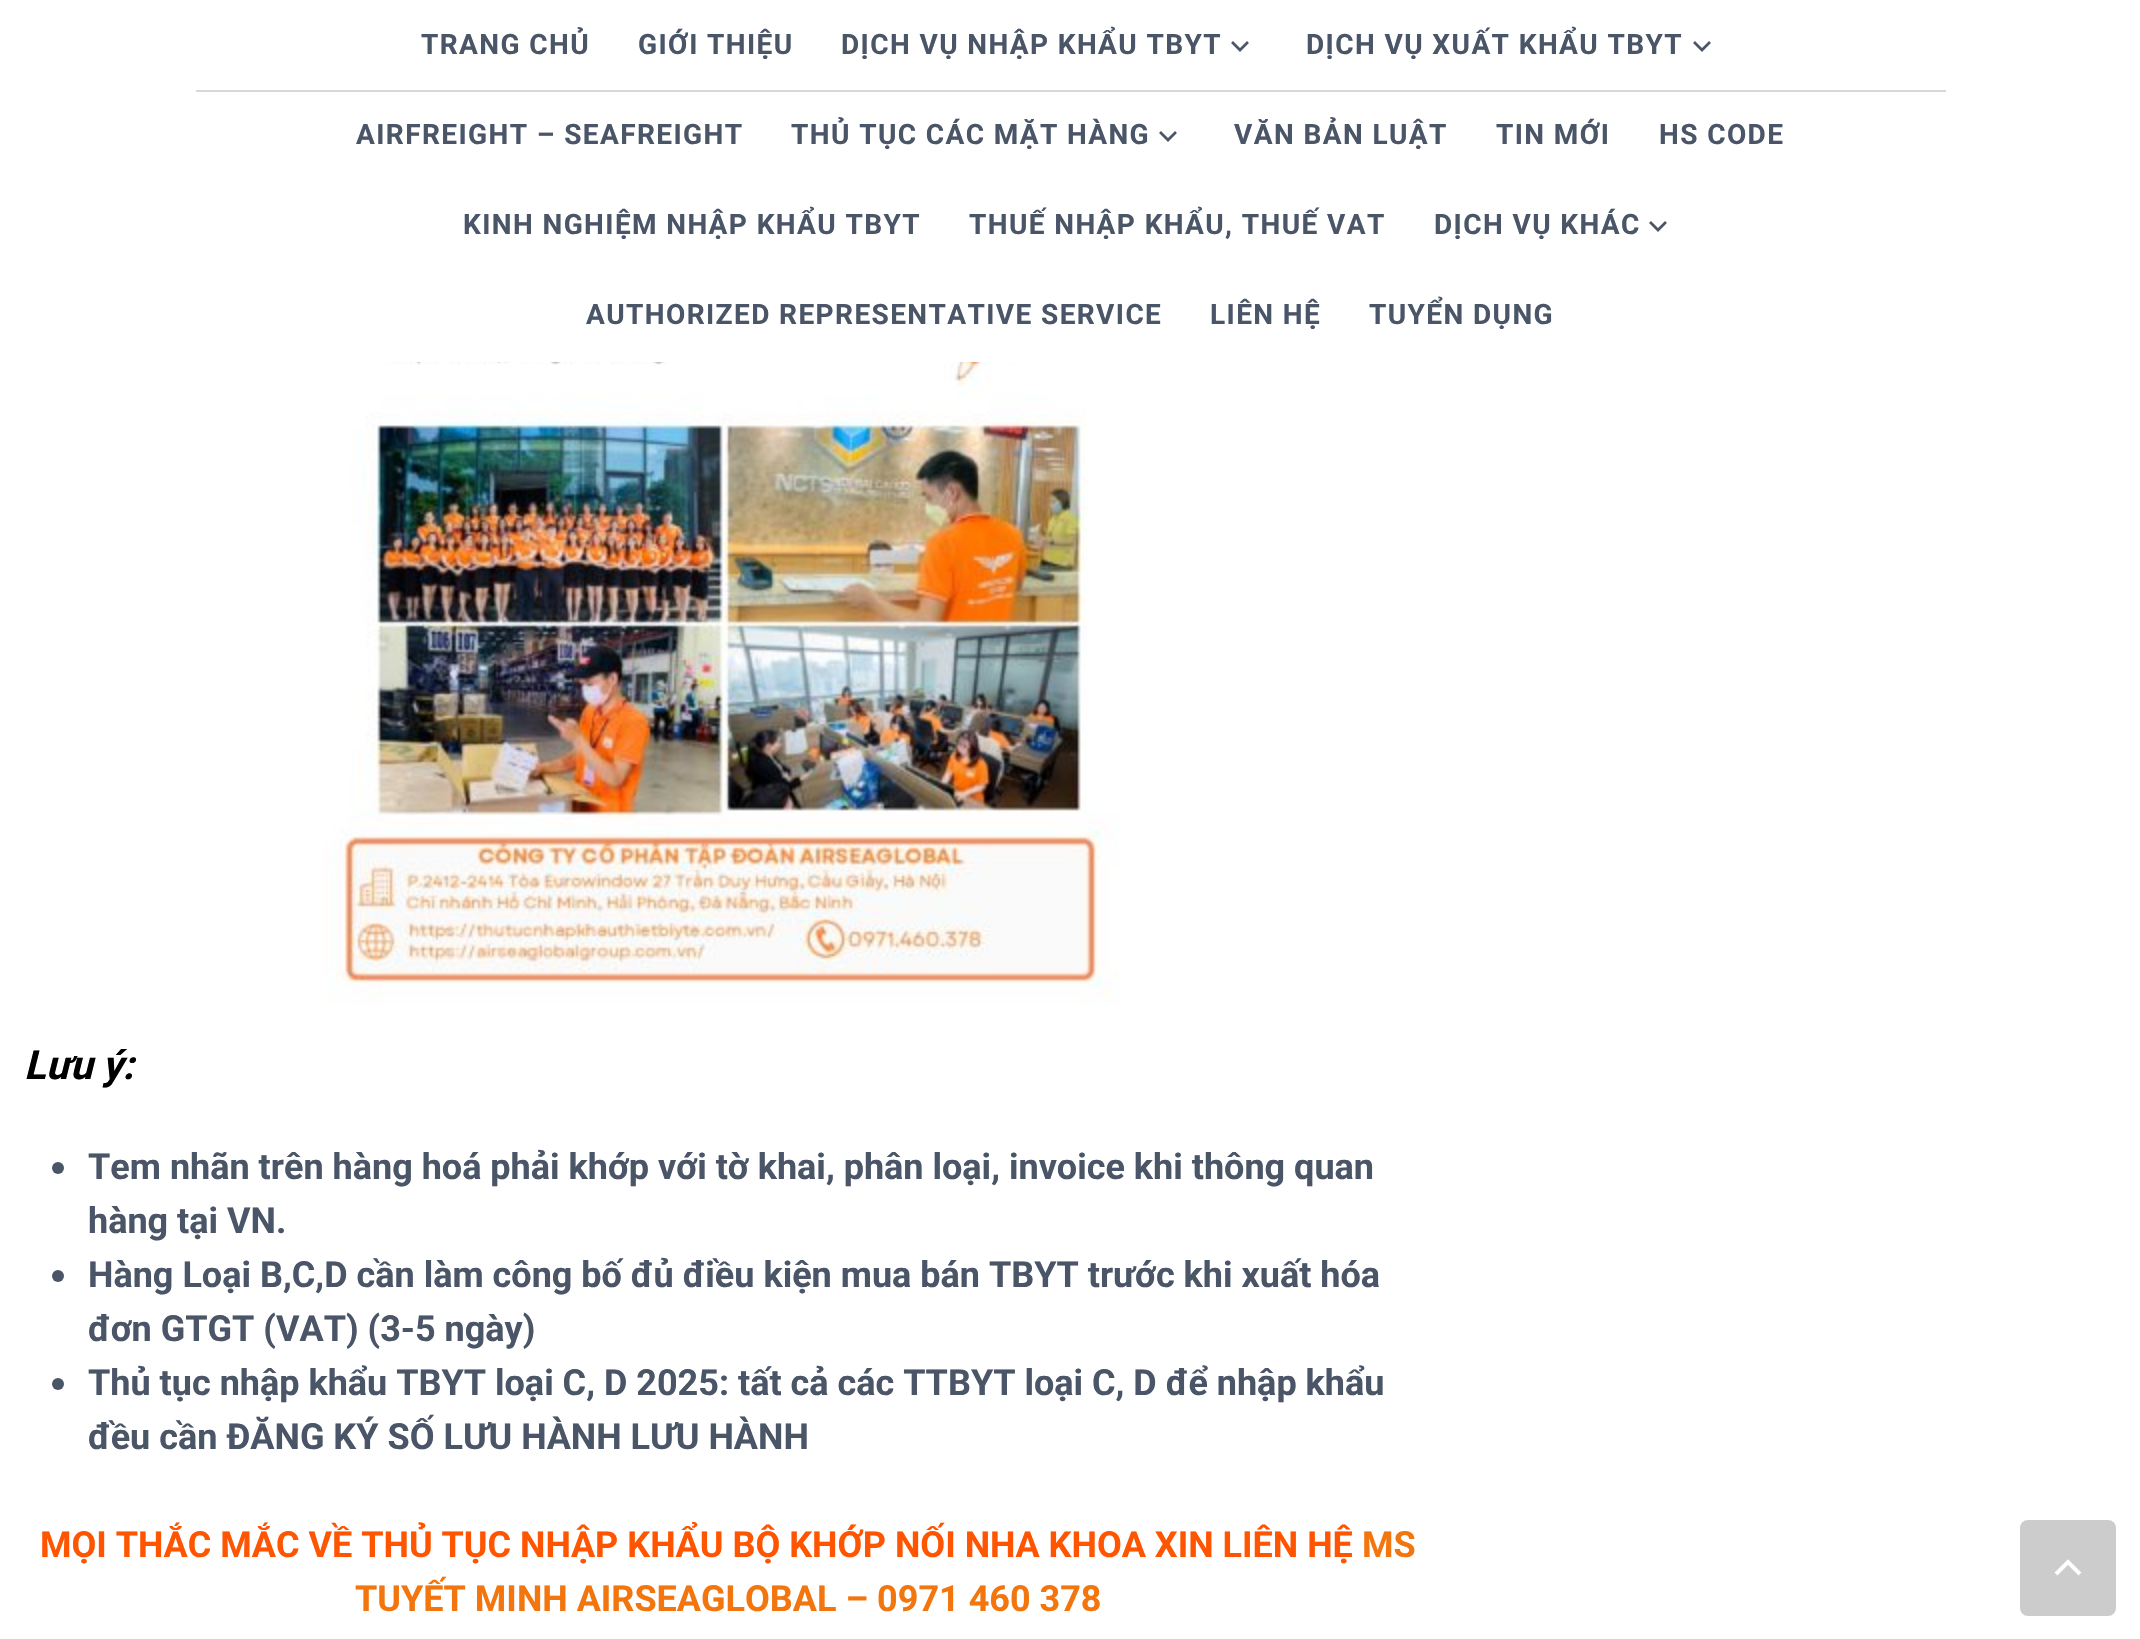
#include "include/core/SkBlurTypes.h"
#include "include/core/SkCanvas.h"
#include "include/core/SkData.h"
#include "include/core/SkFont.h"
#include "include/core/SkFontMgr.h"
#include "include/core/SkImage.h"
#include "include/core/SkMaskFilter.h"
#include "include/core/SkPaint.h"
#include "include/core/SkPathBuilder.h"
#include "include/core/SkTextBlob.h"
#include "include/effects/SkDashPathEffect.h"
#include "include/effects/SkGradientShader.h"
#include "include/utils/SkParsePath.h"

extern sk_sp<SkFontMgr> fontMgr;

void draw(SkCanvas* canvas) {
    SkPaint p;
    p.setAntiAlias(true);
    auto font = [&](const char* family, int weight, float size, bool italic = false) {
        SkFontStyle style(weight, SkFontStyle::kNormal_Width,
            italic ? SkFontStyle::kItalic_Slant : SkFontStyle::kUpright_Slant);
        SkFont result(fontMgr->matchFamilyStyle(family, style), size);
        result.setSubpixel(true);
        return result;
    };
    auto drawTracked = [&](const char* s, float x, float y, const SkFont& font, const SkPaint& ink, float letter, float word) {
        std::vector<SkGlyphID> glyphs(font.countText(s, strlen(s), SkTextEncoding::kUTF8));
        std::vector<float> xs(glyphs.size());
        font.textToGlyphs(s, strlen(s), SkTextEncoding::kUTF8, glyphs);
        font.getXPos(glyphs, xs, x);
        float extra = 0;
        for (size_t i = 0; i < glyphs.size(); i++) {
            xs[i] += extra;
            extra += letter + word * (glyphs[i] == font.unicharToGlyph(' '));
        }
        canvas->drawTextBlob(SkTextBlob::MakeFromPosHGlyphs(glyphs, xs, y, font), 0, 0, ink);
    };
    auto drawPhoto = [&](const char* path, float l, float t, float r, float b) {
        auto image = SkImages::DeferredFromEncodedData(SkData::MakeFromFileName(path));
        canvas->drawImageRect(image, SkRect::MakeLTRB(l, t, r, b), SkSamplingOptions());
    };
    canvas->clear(0xFFFFFFFF);
    auto font1 = font("Roboto", 700, 28);
    p.setColor(0xFF4A5568);
    {
        const struct { const char* s; float x, y; } items[] = {
            {"TRANG CHỦ", 421, 54},
            {"GIỚI THIỆU", 638, 54},
            {"DỊCH VỤ NHẬP KHẨU TBYT", 841, 54},
        };
        for (auto [s, x, y] : items) {
            drawTracked(s, x, y, font1, p, 1.4f, 0);
        }
    }
    p.setStyle(SkPaint::kStroke_Style);
    p.setStrokeWidth(2.7f);
    canvas->drawPath(SkPathBuilder().moveTo(1232, 42).lineTo(1240, 50).lineTo(1248, 42).detach(), p);
    p.setStyle(SkPaint::kFill_Style);
    drawTracked("DỊCH VỤ XUẤT KHẨU TBYT", 1306, 54, font1, p, 1.4f, 0);
    p.setStyle(SkPaint::kStroke_Style);
    canvas->drawPath(SkPathBuilder().moveTo(1694, 42).lineTo(1702, 50).lineTo(1710, 42).detach(), p);
    p.setStyle(SkPaint::kFill_Style);
    drawTracked("AIRFREIGHT – SEAFREIGHT", 356, 144, font1, p, 1.4f, 0);
    drawTracked("THỦ TỤC CÁC MẶT HÀNG", 791, 144, font1, p, 1.4f, 0);
    p.setStyle(SkPaint::kStroke_Style);
    canvas->drawPath(SkPathBuilder().moveTo(1160, 132).lineTo(1168, 140).lineTo(1176, 132).detach(), p);
    p.setStyle(SkPaint::kFill_Style);
    {
        const struct { const char* s; float x, y; } items[] = {
            {"VĂN BẢN LUẬT", 1234, 144},
            {"TIN MỚI", 1496, 144},
            {"HS CODE", 1659, 144},
            {"KINH NGHIỆM NHẬP KHẨU TBYT", 463, 234},
            {"THUẾ NHẬP KHẨU, THUẾ VAT", 969, 234},
            {"DỊCH VỤ KHÁC", 1434, 234},
        };
        for (auto [s, x, y] : items) {
            drawTracked(s, x, y, font1, p, 1.4f, 0);
        }
    }
    p.setStyle(SkPaint::kStroke_Style);
    canvas->drawPath(SkPathBuilder().moveTo(1650, 222).lineTo(1658, 230).lineTo(1666, 222).detach(), p);
    p.setStyle(SkPaint::kFill_Style);
    {
        const struct { const char* s; float x, y; } items[] = {
            {"AUTHORIZED REPRESENTATIVE SERVICE", 586, 324},
            {"LIÊN HỆ", 1210, 324},
            {"TUYỂN DỤNG", 1369, 324},
        };
        for (auto [s, x, y] : items) {
            drawTracked(s, x, y, font1, p, 1.4f, 0);
        }
    }
    p.setColor(0xFFD8D8D8);
    canvas->drawRect(SkRect::MakeLTRB(196, 90, 1946, 92), p);
    drawPhoto("media/1.png", 323, 362, 1119, 1004);
    auto font2 = font("Roboto", 700, 40, true);
    p.setColor(0xFF000000);
    canvas->drawString("Lưu ý:", 24, 1079, font2, p);
    p.setColor(0xFF4A5568);
    canvas->drawCircle(58, 1168, 6, p);
    auto font3 = font("Roboto", 700, 36);
    canvas->drawString("Tem nhãn trên hàng hoá phải khớp với tờ khai, phân loại, invoice khi thông quan", 88, 1179, font3, p);
    canvas->drawString("hàng tại VN.", 88, 1233, font3, p);
    canvas->drawCircle(58, 1276, 6, p);
    canvas->drawString("Hàng Loại B,C,D cần làm công bố đủ điều kiện mua bán TBYT trước khi xuất hóa", 88, 1287, font3, p);
    canvas->drawString("đơn GTGT (VAT) (3-5 ngày)", 88, 1341, font3, p);
    canvas->drawCircle(58, 1384, 6, p);
    canvas->drawString("Thủ tục nhập khẩu TBYT loại C, D 2025: tất cả các TTBYT loại C, D để nhập khẩu", 88, 1395, font3, p);
    canvas->drawString("đều cần ĐĂNG KÝ SỐ LƯU HÀNH LƯU HÀNH", 88, 1449, font3, p);
    p.setColor(0xFFFF5500);
    canvas->drawString("MỌI THẮC MẮC VỀ THỦ TỤC NHẬP KHẨU BỘ KHỚP NỐI NHA KHOA XIN LIÊN HỆ", 40, 1557, font3, p);
    p.setColor(0xFFF3750D);
    canvas->drawString("MS", 1362, 1557, font3, p);
    canvas->drawString("TUYẾT MINH AIRSEAGLOBAL – 0971 460 378", 355, 1611, font3, p);
    p.setColor(0xFFCCCCCC);
    canvas->drawRoundRect(SkRect::MakeLTRB(2020, 1520, 2116, 1616), 8, 8, p);
    p.setStyle(SkPaint::kStroke_Style);
    p.setStrokeWidth(4);
    p.setColor(0xFFFFFFFF);
    canvas->drawPath(SkPathBuilder().moveTo(2080, 1574).lineTo(2068, 1562).lineTo(2056, 1574).detach(), p);
}
